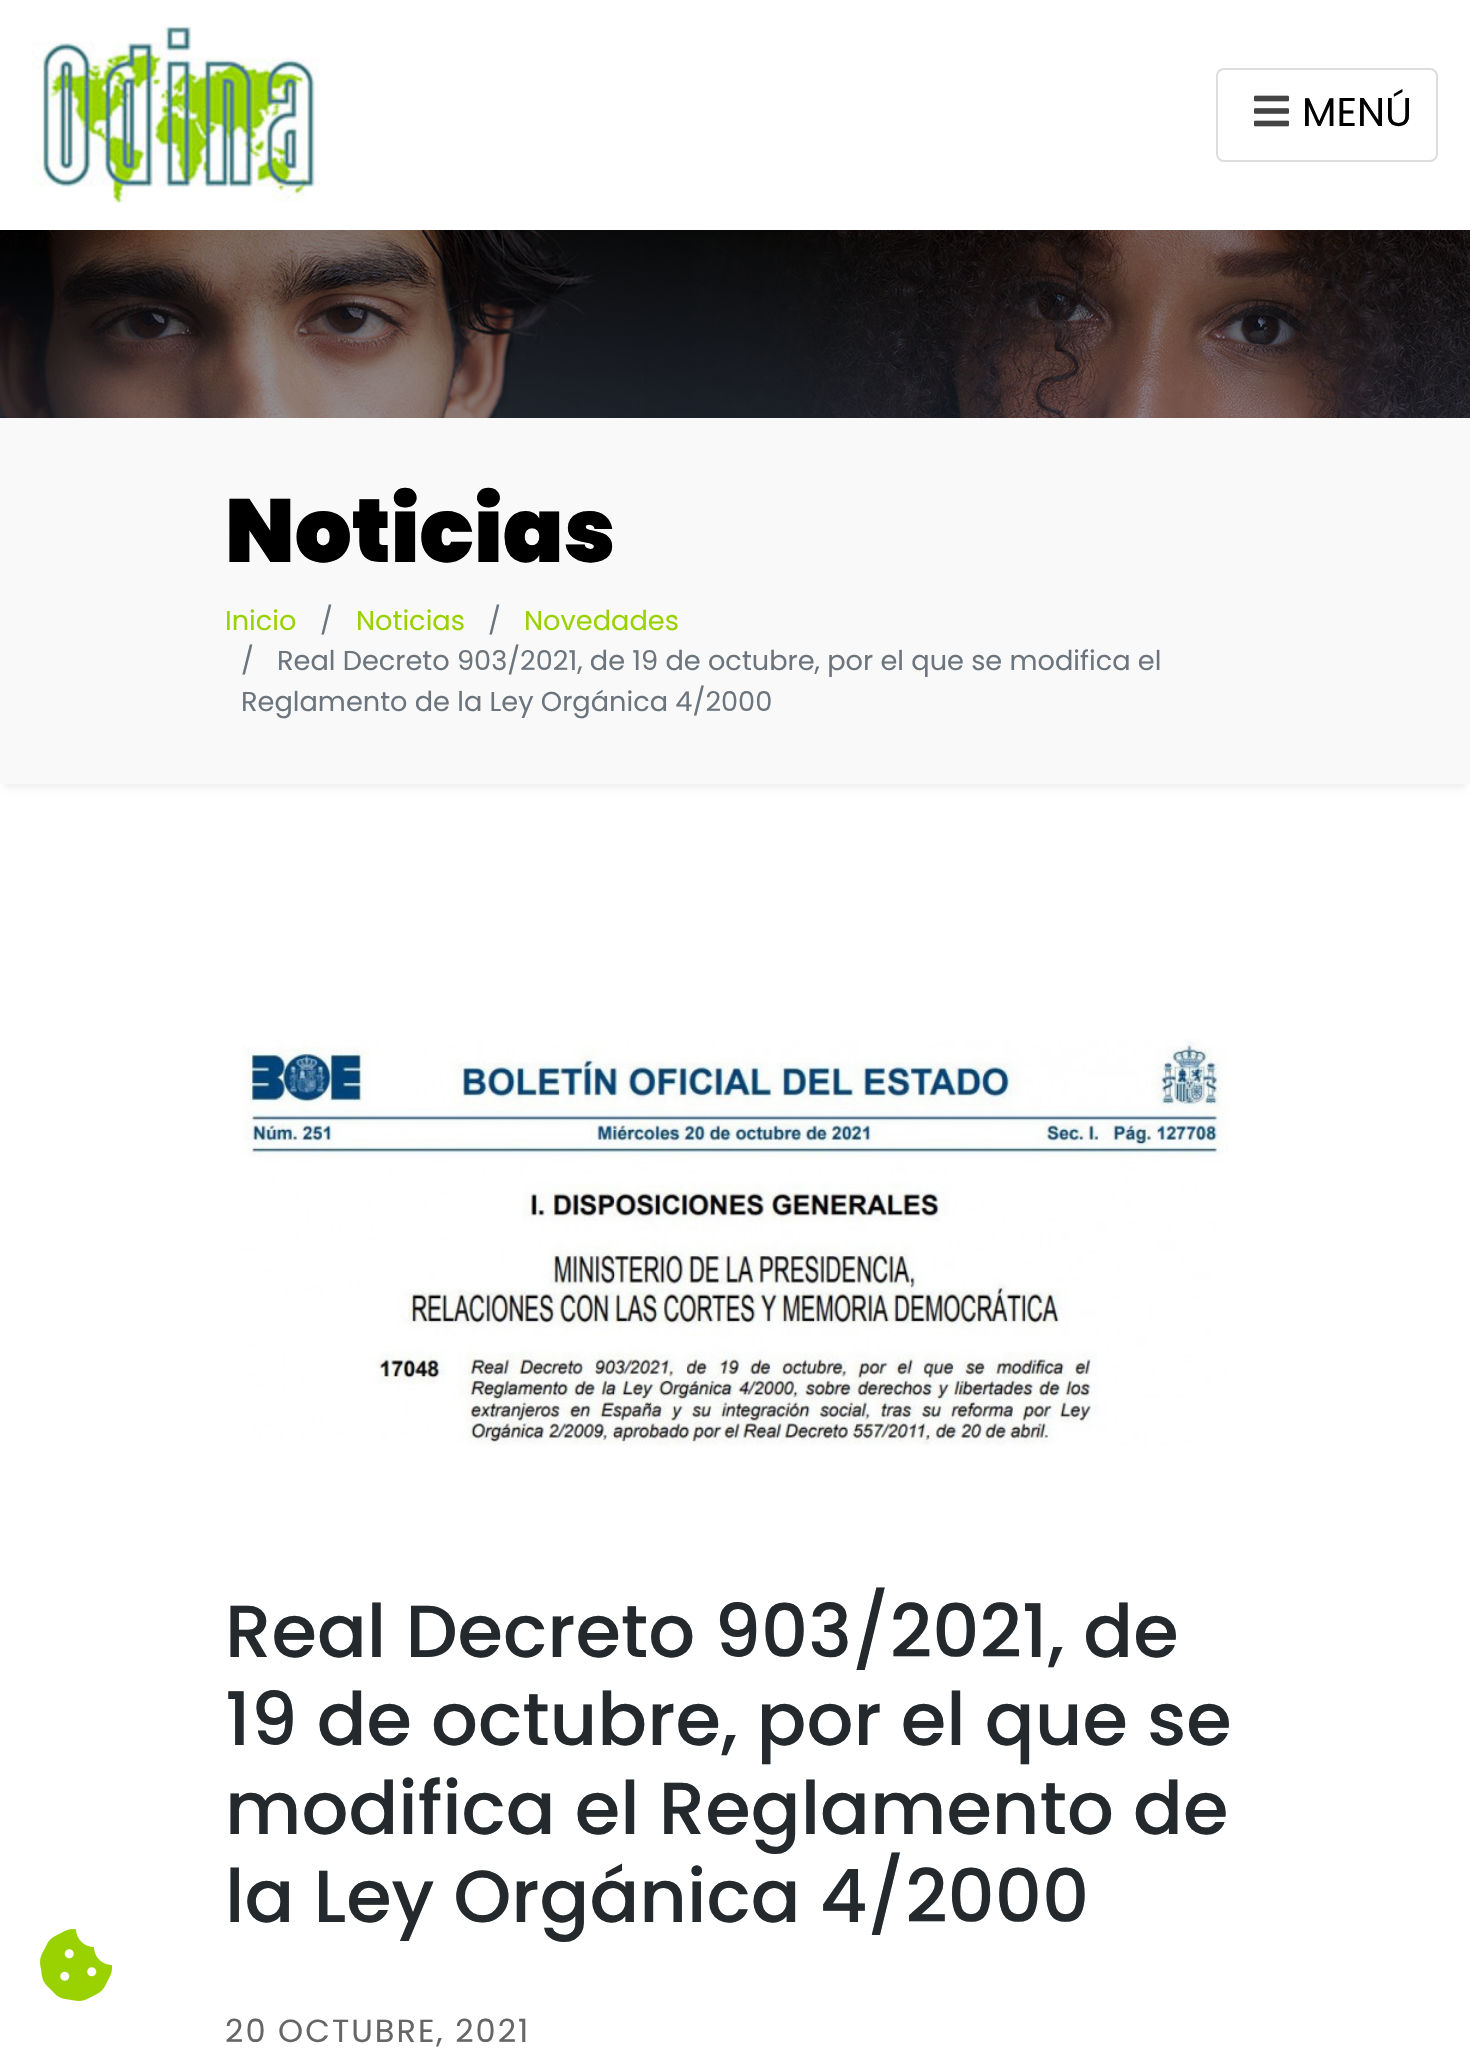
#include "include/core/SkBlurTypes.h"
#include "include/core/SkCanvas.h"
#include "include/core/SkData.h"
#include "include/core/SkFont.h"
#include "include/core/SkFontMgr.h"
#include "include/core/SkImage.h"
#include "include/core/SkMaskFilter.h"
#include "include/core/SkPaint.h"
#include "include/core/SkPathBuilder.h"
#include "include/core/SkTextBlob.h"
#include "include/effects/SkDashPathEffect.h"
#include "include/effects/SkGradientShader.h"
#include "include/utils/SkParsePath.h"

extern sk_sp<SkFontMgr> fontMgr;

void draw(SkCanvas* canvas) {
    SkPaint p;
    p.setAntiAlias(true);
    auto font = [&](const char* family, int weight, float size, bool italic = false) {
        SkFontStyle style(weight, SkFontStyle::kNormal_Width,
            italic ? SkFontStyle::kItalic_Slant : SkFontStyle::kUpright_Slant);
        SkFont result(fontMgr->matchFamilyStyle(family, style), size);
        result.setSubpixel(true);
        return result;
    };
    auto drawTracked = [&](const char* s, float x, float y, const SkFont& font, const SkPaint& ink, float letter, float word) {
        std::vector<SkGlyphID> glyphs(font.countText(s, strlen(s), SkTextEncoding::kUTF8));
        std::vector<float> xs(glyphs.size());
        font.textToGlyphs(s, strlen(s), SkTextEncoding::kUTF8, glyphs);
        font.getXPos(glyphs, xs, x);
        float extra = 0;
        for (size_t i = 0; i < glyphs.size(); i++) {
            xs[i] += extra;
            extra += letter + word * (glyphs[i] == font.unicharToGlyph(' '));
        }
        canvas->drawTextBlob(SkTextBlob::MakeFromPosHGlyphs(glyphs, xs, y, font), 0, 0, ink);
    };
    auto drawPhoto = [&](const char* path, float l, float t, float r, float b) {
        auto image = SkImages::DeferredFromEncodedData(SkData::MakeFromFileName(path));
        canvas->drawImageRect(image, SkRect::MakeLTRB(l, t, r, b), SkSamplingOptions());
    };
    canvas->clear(0xFFFFFFFF);
    drawPhoto("media/1.png", 32, 26, 320, 203);
    p.setStyle(SkPaint::kStroke_Style);
    p.setStrokeWidth(2);
    p.setColor(0xFFDDDDDD);
    canvas->drawRoundRect(SkRect::MakeLTRB(1217, 69, 1437, 161), 7, 7, p);
    drawPhoto("media/2.png", 1254, 95, 1289, 127);
    auto font1 = font("Poppins", 400, 40);
    p.setStyle(SkPaint::kFill_Style);
    p.setColor(0xFF000000);
    canvas->drawString("MENÚ", 1302, 126, font1, p);
    drawPhoto("media/3.png", 0, 230, 1470, 418);
    p.setColor(0x0F000000);
    p.setMaskFilter(SkMaskFilter::MakeBlur(kNormal_SkBlurStyle, 3));
    canvas->drawRect(SkRect::MakeLTRB(4, 430, 1466, 788), p);
    p.setMaskFilter(nullptr);
    p.setColor(0xFFF9F9F9);
    canvas->drawRect(SkRect::MakeLTRB(0, 418, 1470, 784), p);
    auto font2 = font("Poppins", 900, 89.5f);
    p.setColor(0xFF000000);
    canvas->drawString("Noticias", 225, 562, font2, p);
    auto font3 = font("Poppins", 400, 27.2f);
    p.setColor(0xFF9AD201);
    canvas->drawString("Inicio", 225, 630, font3, p);
    p.setColor(0xFF6C757D);
    canvas->drawString("/", 320, 630, font3, p);
    p.setColor(0xFF9AD201);
    canvas->drawString("Noticias", 356, 630, font3, p);
    p.setColor(0xFF6C757D);
    canvas->drawString("/", 488, 630, font3, p);
    p.setColor(0xFF9AD201);
    canvas->drawString("Novedades", 524, 630, font3, p);
    p.setColor(0xFF6C757D);
    {
        const struct { const char* s; float x, y; } items[] = {
            {"/", 241, 670},
            {"Real Decreto 903/2021, de 19 de octubre, por el que se modifica el", 277, 670},
            {"Reglamento de la Ley Orgánica 4/2000", 241, 711},
        };
        for (auto [s, x, y] : items) {
            canvas->drawString(s, x, y, font3, p);
        }
    }
    drawPhoto("media/4.png", 40, 1929, 113, 2001);
    drawPhoto("media/5.png", 242, 1039, 1228, 1446);
    auto font4 = font("Poppins", 500, 73.6f);
    p.setColor(0xFF24292D);
    {
        const struct { const char* s; float x, y; } items[] = {
            {"Real Decreto 903/2021, de", 225, 1657},
            {"19 de octubre, por el que se", 225, 1745},
            {"modifica el Reglamento de", 225, 1834},
            {"la Ley Orgánica 4/2000", 225, 1922},
        };
        for (auto [s, x, y] : items) {
            canvas->drawString(s, x, y, font4, p);
        }
    }
    auto font5 = font("Poppins", 400, 32);
    p.setColor(0xFF666666);
    drawTracked("20 OCTUBRE, 2021", 225, 2042, font5, p, 2, 0);
}
